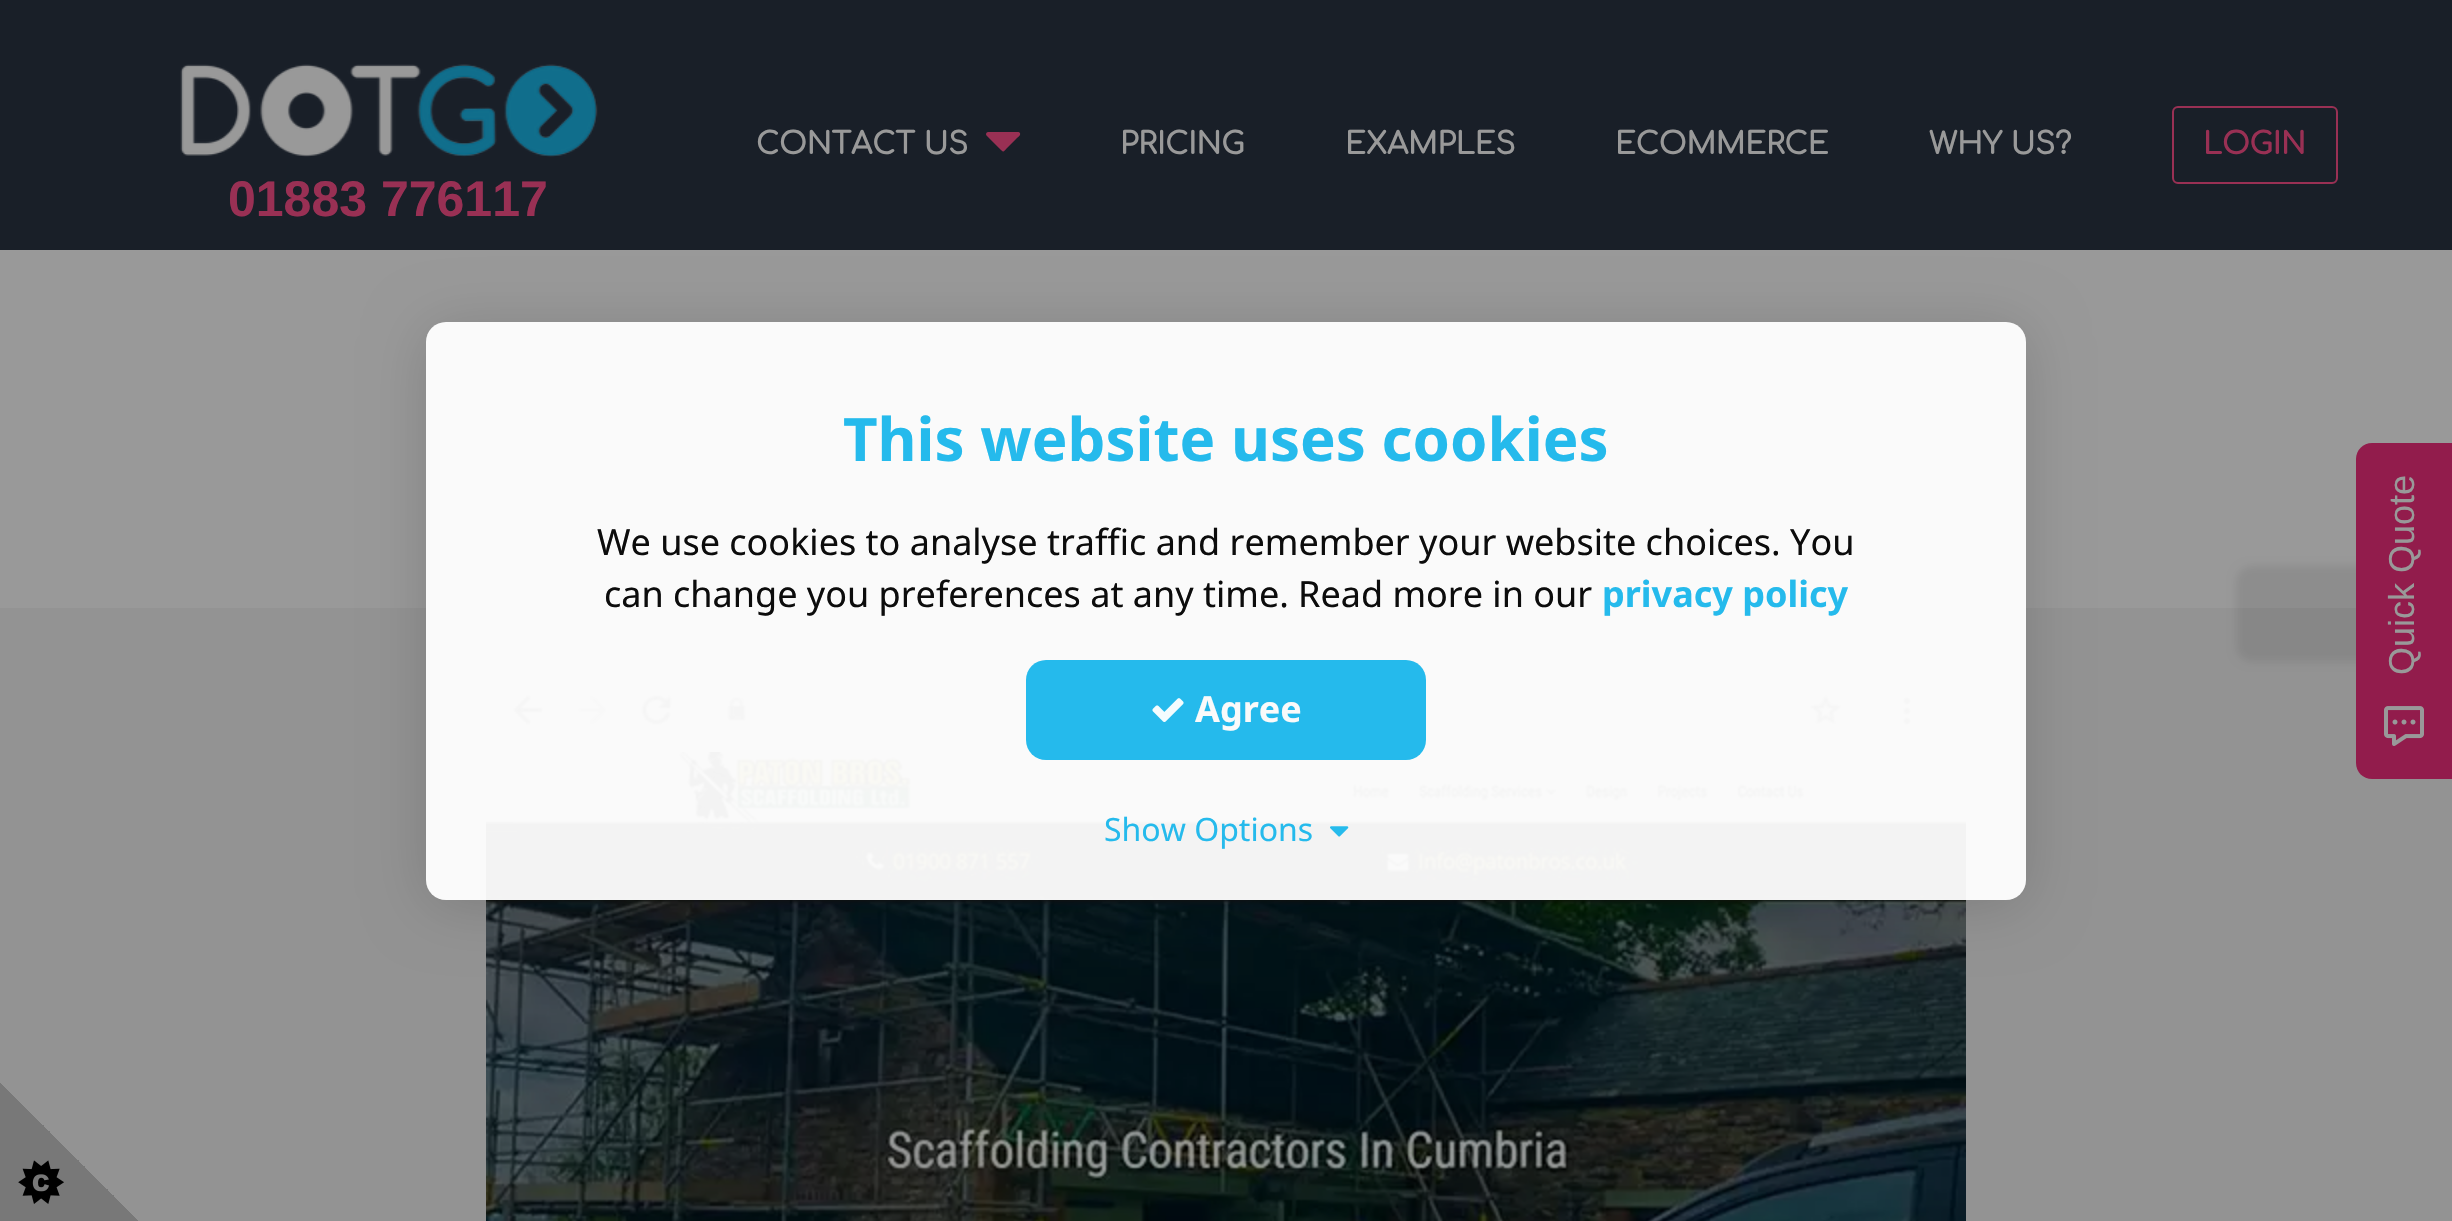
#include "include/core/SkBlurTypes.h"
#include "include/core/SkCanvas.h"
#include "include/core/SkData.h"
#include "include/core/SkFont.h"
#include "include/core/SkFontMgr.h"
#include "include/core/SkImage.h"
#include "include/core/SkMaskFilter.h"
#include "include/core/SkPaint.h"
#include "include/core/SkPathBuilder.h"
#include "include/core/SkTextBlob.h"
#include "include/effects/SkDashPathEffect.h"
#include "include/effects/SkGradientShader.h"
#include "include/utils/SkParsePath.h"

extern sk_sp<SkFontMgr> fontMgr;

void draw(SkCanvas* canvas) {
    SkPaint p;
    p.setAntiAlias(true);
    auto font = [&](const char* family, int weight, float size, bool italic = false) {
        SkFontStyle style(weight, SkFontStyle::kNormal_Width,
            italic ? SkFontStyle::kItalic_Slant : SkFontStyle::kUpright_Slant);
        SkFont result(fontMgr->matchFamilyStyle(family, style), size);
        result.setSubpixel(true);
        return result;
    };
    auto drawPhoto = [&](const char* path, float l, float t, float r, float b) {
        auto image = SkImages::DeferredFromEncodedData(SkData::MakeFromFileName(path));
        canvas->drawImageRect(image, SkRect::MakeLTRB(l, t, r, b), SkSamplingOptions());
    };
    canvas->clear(0xFF999999);
    p.setColor(0xFF191F28);
    canvas->drawRect(SkRect::MakeLTRB(0, 0, 2452, 250), p);
    auto font1 = font("Comfortaa", 700, 30);
    p.setColor(0xFF999999);
    canvas->drawString("CONTACT US", 756, 154, font1, p);
    p.setColor(0xFF993054);
    canvas->drawPath(SkPathBuilder().moveTo(1019.5f, 132.5f).cubicTo(1021.5f, 134.5f, 1018.5f, 137, 1017, 138).lineTo(1007, 148).cubicTo(1003, 152.5f, 1003.5f, 152.5f, 999, 148).lineTo(986.5f, 135.5f).cubicTo(985.5f, 134.5f, 986, 132, 988, 132).lineTo(1018.5f, 132).close().detach(), p);
    p.setColor(0xFF999999);
    {
        const struct { const char* s; float x, y; } items[] = {
            {"PRICING", 1120, 154},
            {"EXAMPLES", 1345, 154},
            {"ECOMMERCE", 1615, 154},
            {"WHY US?", 1929, 154},
        };
        for (auto [s, x, y] : items) {
            canvas->drawString(s, x, y, font1, p);
        }
    }
    p.setStyle(SkPaint::kStroke_Style);
    p.setStrokeWidth(2);
    p.setColor(0xFF993054);
    canvas->drawRoundRect(SkRect::MakeLTRB(2173, 107, 2337, 183), 5, 5, p);
    p.setStyle(SkPaint::kFill_Style);
    canvas->drawString("LOGIN", 2203, 154, font1, p);
    drawPhoto("media/1.png", 180, 64, 598, 157);
    auto font2 = font("Liberation Sans", 700, 50);
    canvas->drawString("01883 776117", 228, 216, font2, p);
    p.setColor(0xFF939393);
    canvas->drawRect(SkRect::MakeLTRB(0, 608, 2452, 1221), p);
    drawPhoto("media/2.png", 486, 674, 1966, 752);
    drawPhoto("media/3.png", 486, 752, 1966, 1221);
    canvas->save();
    canvas->clipPath(SkPathBuilder(SkPathFillType::kEvenOdd).moveTo(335, 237).lineTo(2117, 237).lineTo(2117, 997).lineTo(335, 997).close().moveTo(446, 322).lineTo(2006, 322).cubicTo(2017, 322, 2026, 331, 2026, 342).lineTo(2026, 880).cubicTo(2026, 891, 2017, 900, 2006, 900).lineTo(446, 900).cubicTo(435, 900, 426, 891, 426, 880).lineTo(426, 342).cubicTo(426, 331, 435, 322, 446, 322).close().detach(), true);
    p.setColor(0x26000000);
    p.setMaskFilter(SkMaskFilter::MakeBlur(kNormal_SkBlurStyle, 30));
    canvas->drawRoundRect(SkRect::MakeLTRB(426, 328, 2026, 906), 20, 20, p);
    p.setMaskFilter(nullptr);
    canvas->restore();
    p.setColor(0xF2FFFFFF);
    canvas->drawRoundRect(SkRect::MakeLTRB(426, 322, 2026, 900), 20, 20, p);
    auto font3 = font("Noto Sans", 700, 60);
    p.setColor(0xFF25BAEC);
    canvas->drawString("This website uses cookies", 843, 461, font3, p);
    auto font4 = font("Noto Sans", 400, 36);
    p.setColor(0xFF0C0C0C);
    {
        const struct { const char* s; float x, y; } items[] = {
            {"We use cookies to analyse traffic and remember your website choices.", 597, 555},
            {"You", 1790, 555},
            {"can change you preferences at any time.", 604, 607},
            {"Read more in our", 1298, 607},
        };
        for (auto [s, x, y] : items) {
            canvas->drawString(s, x, y, font4, p);
        }
    }
    auto font5 = font("Noto Sans", 700, 36);
    p.setColor(0xFF25BAEC);
    canvas->drawString("privacy policy", 1602, 607, font5, p);
    canvas->drawRoundRect(SkRect::MakeLTRB(1026, 660, 1426, 760), 20, 20, p);
    drawPhoto("media/4.png", 1152, 698, 1184, 722);
    p.setColor(0xFFFAFAFA);
    canvas->drawString("Agree", 1195, 722, font5, p);
    auto font6 = font("Noto Sans", 400, 32);
    p.setColor(0xFF25BAEC);
    canvas->drawString("Show Options", 1104, 841, font6, p);
    drawPhoto("media/5.png", 1330, 826, 1349, 837);
    {
        const SkColor colors[] = {0xFF939393, 0xFF787878};
        const float stops[] = {0.5f, 0.5f};
        const SkPoint ends[] = {{140, 1082}, {0, 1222}};
        p.setShader(SkGradientShader::MakeLinear(ends, colors, stops, 2, SkTileMode::kClamp));
        p.setAlpha(255);
    }
    canvas->drawRect(SkRect::MakeLTRB(0, 1082, 139, 1221), p);
    drawPhoto("media/6.png", 18, 1160, 64, 1204);
    p.setShader(nullptr);
    p.setColor(0x14000000);
    p.setMaskFilter(SkMaskFilter::MakeBlur(kNormal_SkBlurStyle, 4));
    canvas->drawRoundRect(SkRect::MakeLTRB(2236, 566, 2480, 662), 16, 16, p);
    p.setMaskFilter(nullptr);
    p.setColor(0xFF921C4C);
    canvas->drawPath(SkPathBuilder().moveTo(2356, 763).lineTo(2356, 459).cubicTo(2356, 450, 2363, 443, 2372, 443).lineTo(2452, 443).lineTo(2452, 779).lineTo(2372, 779).cubicTo(2363, 779, 2356, 772, 2356, 763).close().detach(), p);
    auto font7 = font("Liberation Sans", 400, 36);
    p.setColor(0xFF999999);
    canvas->save();
    canvas->rotate(-90, 2414, 675);
    canvas->drawString("Quick Quote", 2414, 675, font7, p);
    canvas->restore();
    drawPhoto("media/7.png", 2384, 706, 2424, 746);
}
